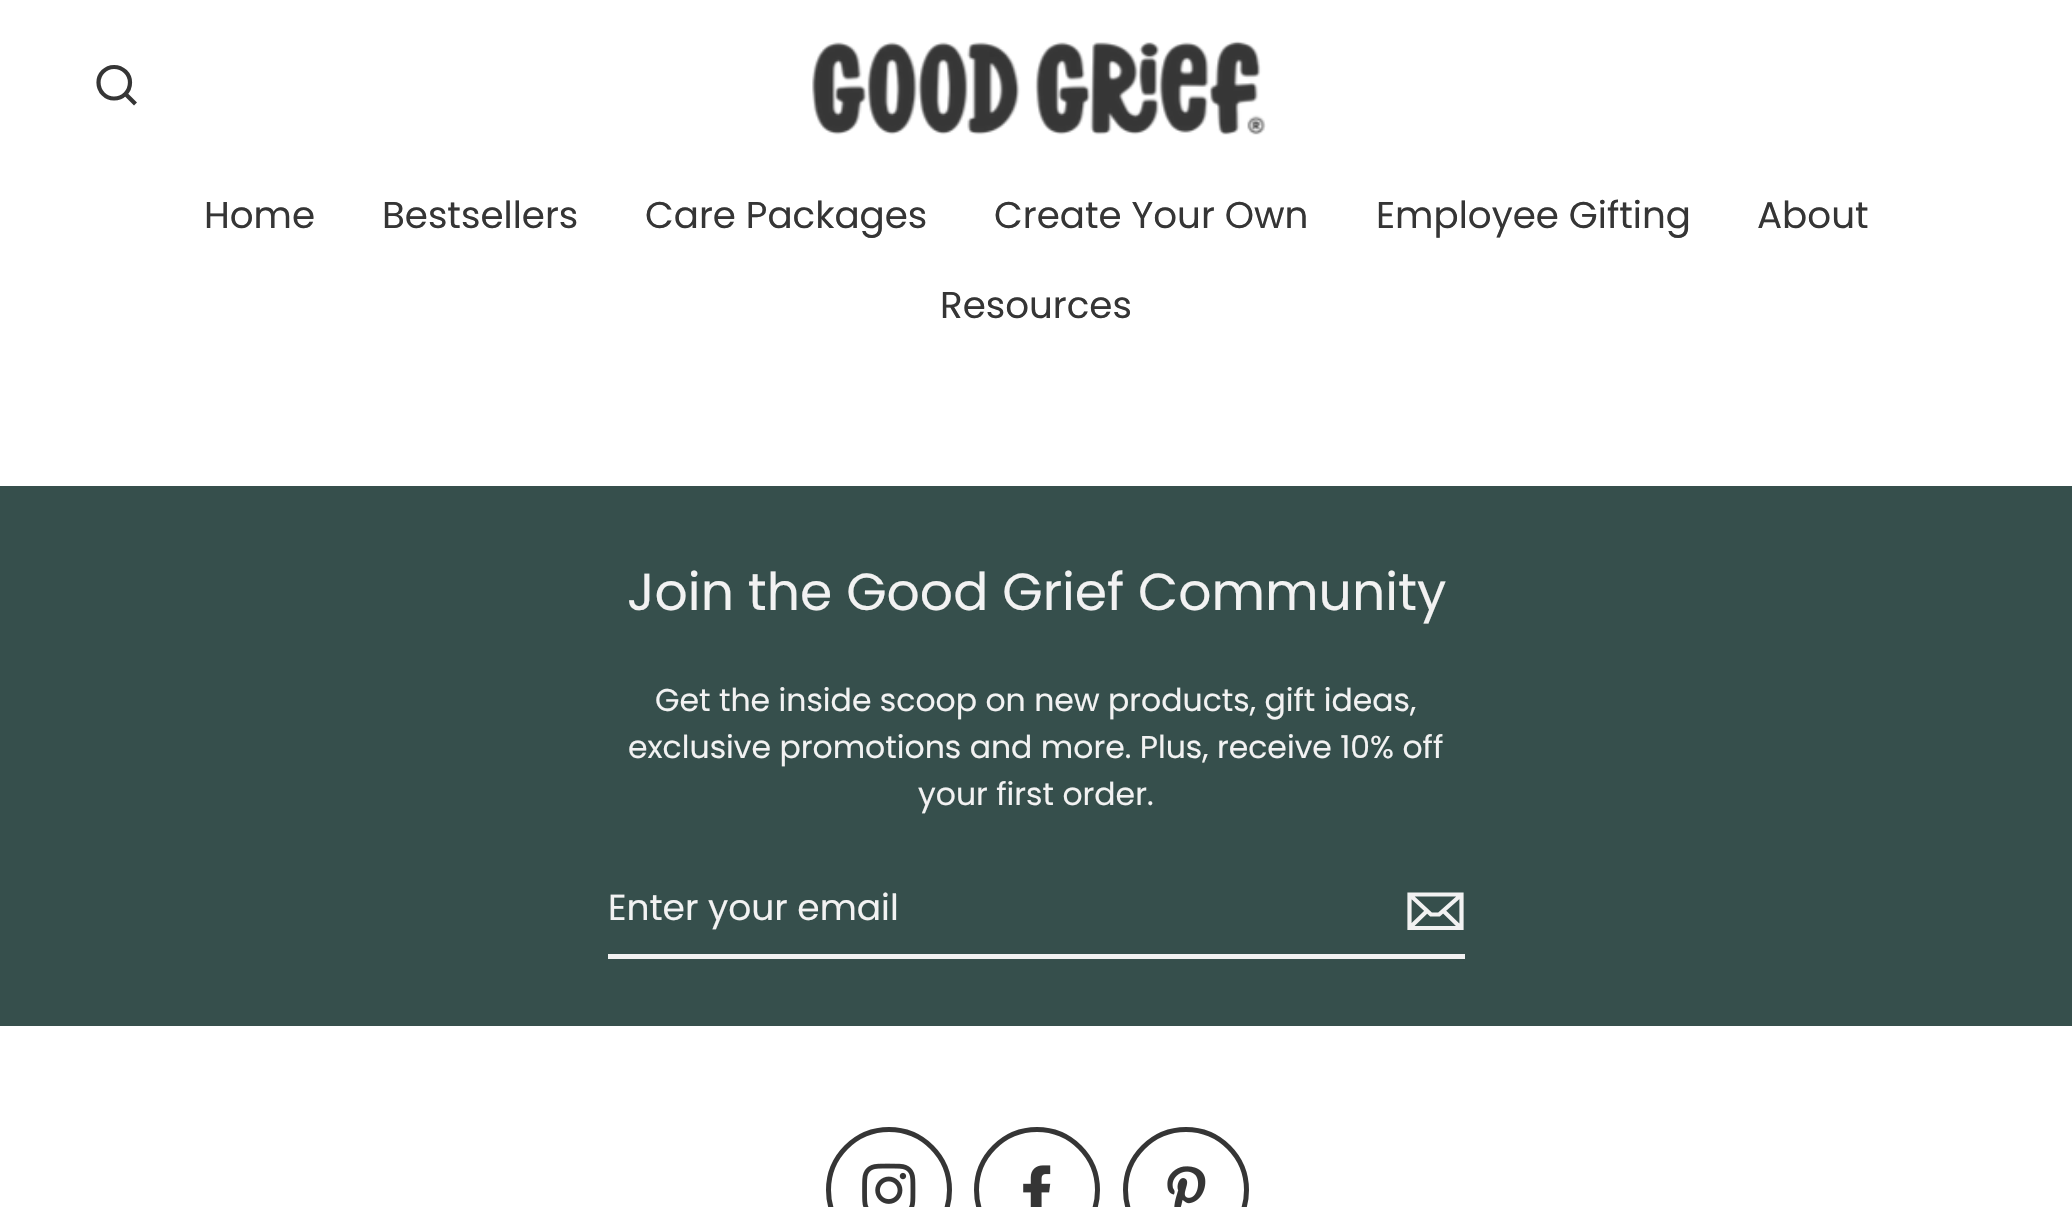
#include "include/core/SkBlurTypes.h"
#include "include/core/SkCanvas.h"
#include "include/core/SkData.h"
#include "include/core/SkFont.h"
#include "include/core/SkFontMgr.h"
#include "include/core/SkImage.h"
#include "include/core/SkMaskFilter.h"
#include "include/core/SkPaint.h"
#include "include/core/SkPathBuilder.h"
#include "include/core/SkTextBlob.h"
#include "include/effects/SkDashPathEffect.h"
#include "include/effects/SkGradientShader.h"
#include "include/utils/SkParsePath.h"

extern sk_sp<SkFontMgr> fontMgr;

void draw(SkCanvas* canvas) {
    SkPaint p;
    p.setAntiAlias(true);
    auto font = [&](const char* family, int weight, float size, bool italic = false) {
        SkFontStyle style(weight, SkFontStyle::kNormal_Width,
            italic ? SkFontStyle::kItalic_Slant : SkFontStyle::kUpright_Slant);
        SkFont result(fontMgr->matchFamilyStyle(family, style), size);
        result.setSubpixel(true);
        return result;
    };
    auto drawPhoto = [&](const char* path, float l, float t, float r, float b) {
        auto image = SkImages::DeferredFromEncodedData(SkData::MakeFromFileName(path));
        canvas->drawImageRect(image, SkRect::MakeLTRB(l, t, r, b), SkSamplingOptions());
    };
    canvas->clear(0xFFFFFFFF);
    p.setStyle(SkPaint::kStroke_Style);
    p.setStrokeWidth(4.2f);
    p.setColor(0xFF353535);
    canvas->drawPath(SkPathBuilder().moveTo(130, 82.5f).cubicTo(130, 91.5f, 123, 98.5f, 114, 98.5f).cubicTo(105.5f, 98.5f, 98.5f, 91.5f, 98.5f, 82.5f).cubicTo(98.5f, 74, 105.5f, 67, 114, 67).cubicTo(123, 67, 130, 74, 130, 82.5f).close().moveTo(135.5f, 104).lineTo(125.5f, 94).detach(), p);
    drawPhoto("media/1.png", 812, 41, 1266, 135);
    auto font1 = font("Poppins", 400, 37.25f);
    p.setStyle(SkPaint::kFill_Style);
    {
        const struct { const char* s; float x, y; } items[] = {
            {"Home", 204, 228},
            {"Bestsellers", 382, 228},
            {"Care Packages", 645, 228},
            {"Create Your Own", 994, 228},
            {"Employee Gifting", 1376, 228},
            {"About", 1757, 228},
            {"Resources", 940, 318},
        };
        for (auto [s, x, y] : items) {
            canvas->drawString(s, x, y, font1, p);
        }
    }
    p.setColor(0xFF364F4C);
    canvas->drawRect(SkRect::MakeLTRB(0, 486, 2072, 1026), p);
    auto font2 = font("Poppins", 400, 52);
    p.setColor(0xFFF2F2F2);
    canvas->drawString("Join the Good Grief Community", 627, 610, font2, p);
    auto font3 = font("Poppins", 400, 31.5f);
    {
        const struct { const char* s; float x, y; } items[] = {
            {"Get the inside scoop on new products, gift ideas,", 655, 711},
            {"exclusive promotions and more. Plus, receive 10% off", 628, 758},
            {"your first order.", 918, 805},
        };
        for (auto [s, x, y] : items) {
            canvas->drawString(s, x, y, font3, p);
        }
    }
    canvas->drawRect(SkRect::MakeLTRB(608, 954, 1465, 959), p);
    auto font4 = font("Poppins", 400, 36);
    canvas->drawString("Enter your email", 608, 920, font4, p);
    p.setStyle(SkPaint::kStroke_Style);
    canvas->drawPath(SkPathBuilder().moveTo(1461.5f, 928).lineTo(1409.5f, 928).lineTo(1409.5f, 894.5f).lineTo(1461.5f, 894.5f).close().moveTo(1409.5f, 894.5f).lineTo(1431, 914.5f).lineTo(1439, 914.5f).lineTo(1461.5f, 894.5f).moveTo(1427, 911).lineTo(1410, 927.5f).moveTo(1461, 928).lineTo(1443.5f, 911).detach(), p);
    p.setStrokeWidth(5);
    p.setColor(0xFF353535);
    canvas->drawCircle(889, 1190, 60.5f, p);
    drawPhoto("media/2.png", 862, 1163, 916, 1207);
    canvas->drawCircle(1037, 1190, 60.5f, p);
    drawPhoto("media/3.png", 1023, 1165, 1051, 1207);
    canvas->drawCircle(1186, 1190, 60.5f, p);
    drawPhoto("media/4.png", 1167, 1166, 1206, 1207);
}
